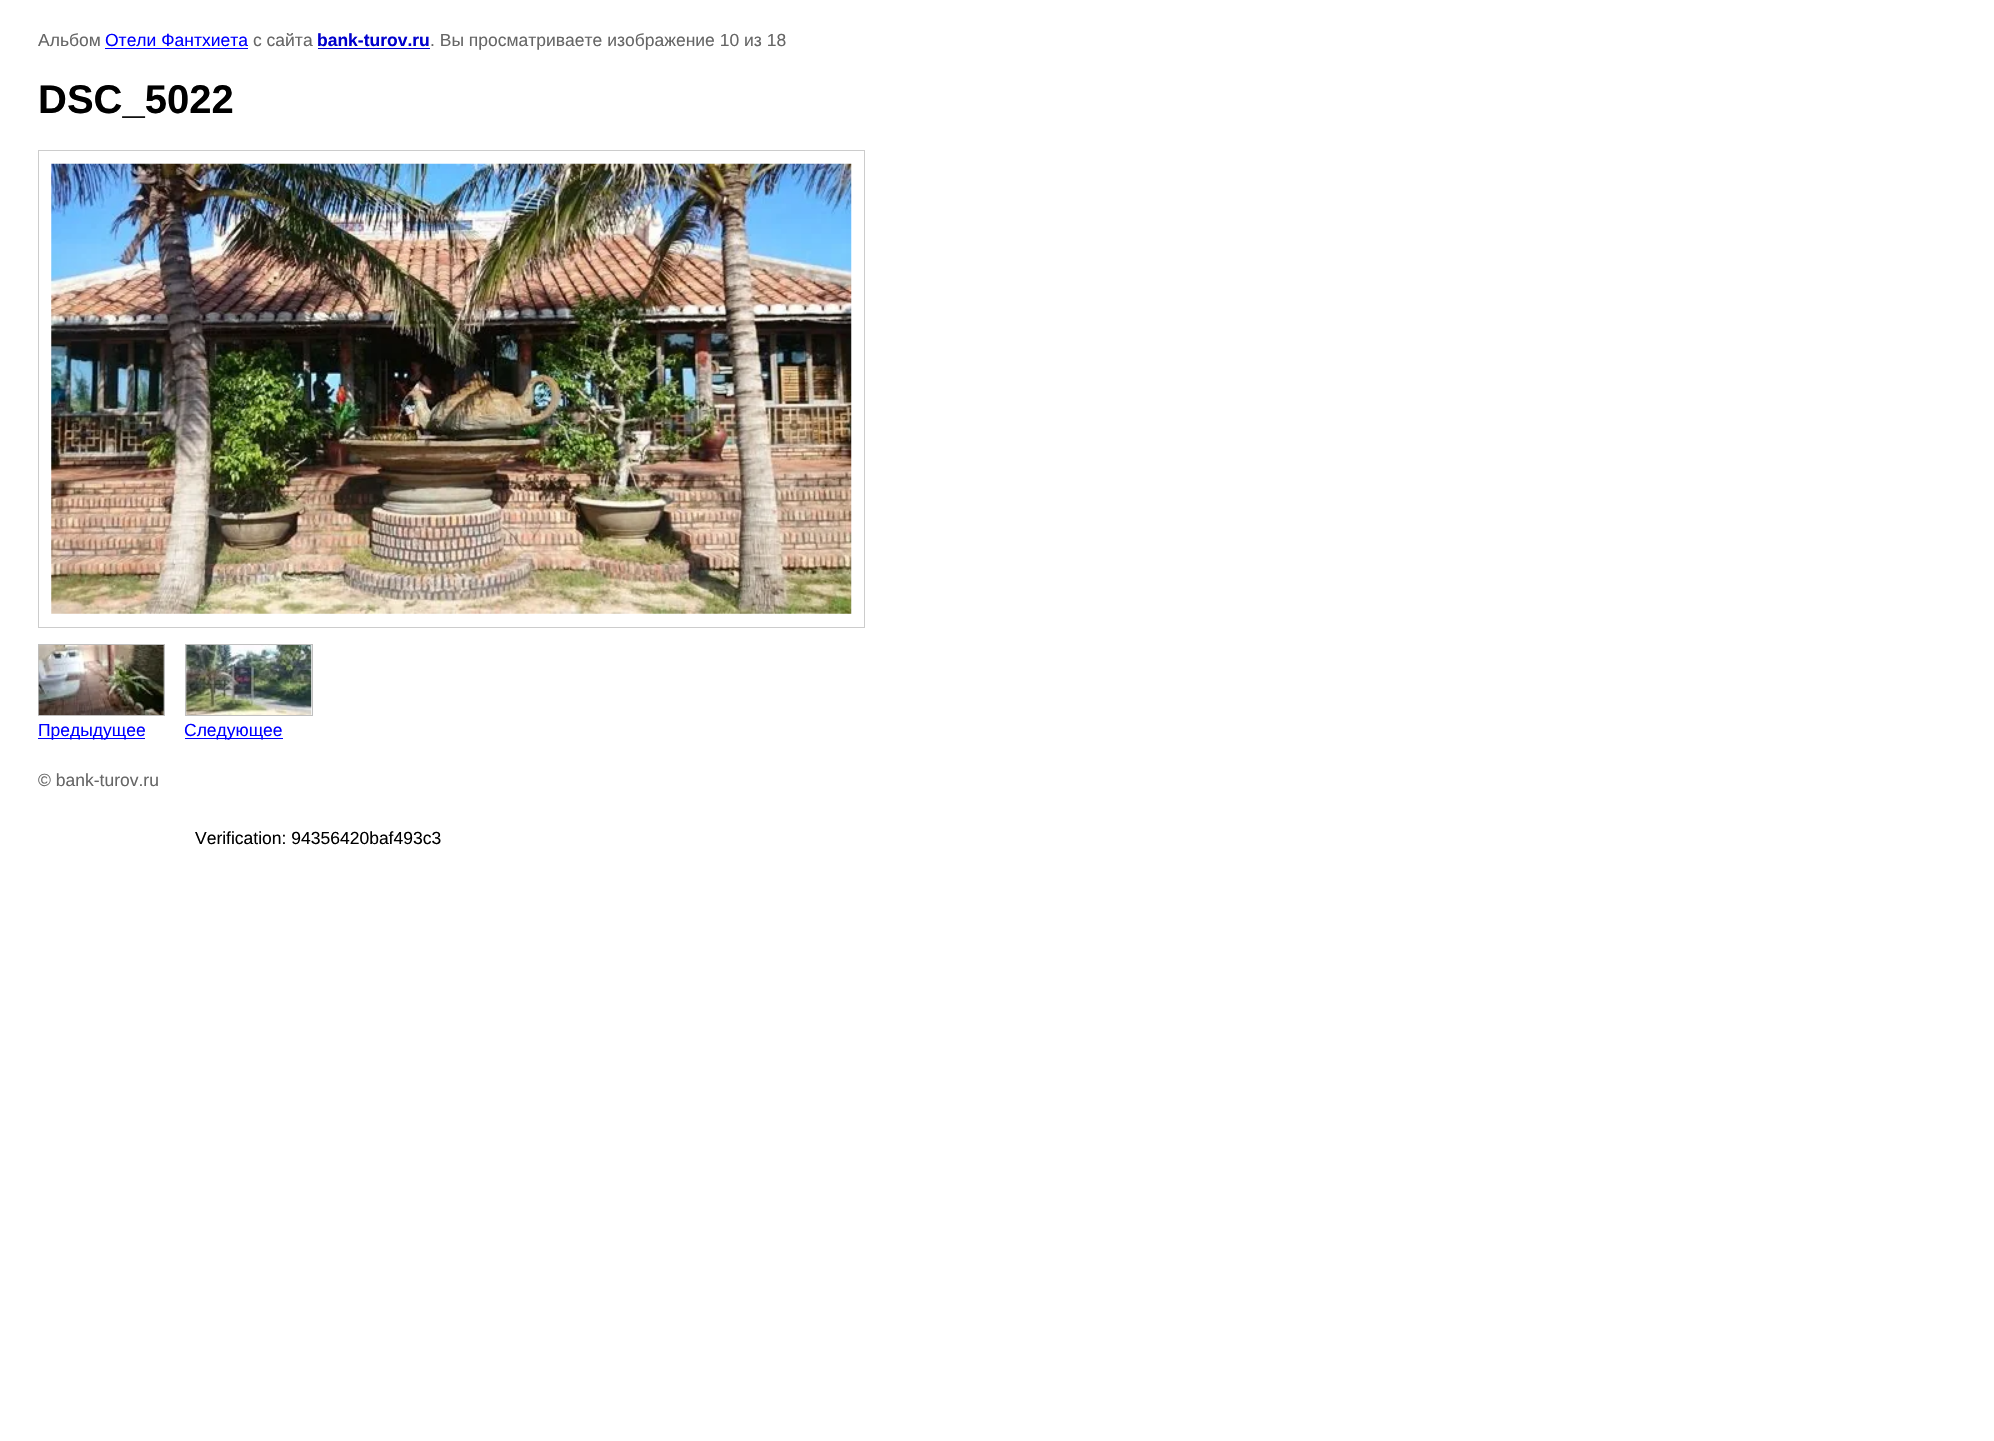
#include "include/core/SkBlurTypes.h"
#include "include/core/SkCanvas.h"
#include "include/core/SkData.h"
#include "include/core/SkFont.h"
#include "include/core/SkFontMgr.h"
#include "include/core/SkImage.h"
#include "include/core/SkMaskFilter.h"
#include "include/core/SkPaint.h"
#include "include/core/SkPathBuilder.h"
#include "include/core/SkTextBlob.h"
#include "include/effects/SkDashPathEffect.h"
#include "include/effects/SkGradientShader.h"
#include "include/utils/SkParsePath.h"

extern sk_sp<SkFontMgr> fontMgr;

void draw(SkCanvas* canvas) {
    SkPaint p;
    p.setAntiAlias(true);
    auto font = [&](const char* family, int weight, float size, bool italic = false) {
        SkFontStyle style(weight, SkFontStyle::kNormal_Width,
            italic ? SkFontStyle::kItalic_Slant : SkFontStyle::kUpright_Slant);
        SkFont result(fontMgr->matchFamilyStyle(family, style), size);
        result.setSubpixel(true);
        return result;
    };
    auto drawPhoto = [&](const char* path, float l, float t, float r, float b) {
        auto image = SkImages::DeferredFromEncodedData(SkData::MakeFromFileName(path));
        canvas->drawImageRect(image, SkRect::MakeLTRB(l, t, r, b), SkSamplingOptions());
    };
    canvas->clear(0xFFFFFFFF);
    auto font1 = font("Liberation Sans", 400, 17.5f);
    p.setColor(0xFF666666);
    canvas->drawString("Альбом", 38, 46, font1, p);
    p.setColor(0xFF0000FF);
    canvas->drawString("Отели Фантхиета", 105, 46, font1, p);
    canvas->drawRect(SkRect::MakeLTRB(105, 48, 248, 49), p);
    p.setColor(0xFF666666);
    canvas->drawString("с сайта", 253, 46, font1, p);
    auto font2 = font("Liberation Sans", 700, 17.5f);
    p.setColor(0xFF0000CC);
    canvas->drawString("bank-turov.ru", 317, 46, font2, p);
    canvas->drawRect(SkRect::MakeLTRB(318, 48, 430, 49), p);
    p.setColor(0xFF666666);
    canvas->drawString(". Вы просматриваете изображение 10 из 18", 430, 46, font1, p);
    auto font3 = font("Liberation Sans", 700, 40);
    p.setColor(0xFF000000);
    canvas->drawString("DSC_5022", 38, 113, font3, p);
    p.setStyle(SkPaint::kStroke_Style);
    p.setStrokeWidth(1);
    p.setColor(0xFFCCCCCC);
    canvas->drawRect(SkRect::MakeLTRB(38.5f, 150.5f, 864.5f, 627.5f), p);
    drawPhoto("media/1.png", 51, 163, 852, 614);
    p.setColor(0xFFC0C0C0);
    canvas->drawRect(SkRect::MakeLTRB(38.5f, 644.5f, 164.5f, 715.5f), p);
    drawPhoto("media/2.png", 38, 645, 164, 715);
    p.setStyle(SkPaint::kFill_Style);
    p.setColor(0xFF0000FF);
    canvas->drawRect(SkRect::MakeLTRB(38, 738, 145, 739), p);
    canvas->drawString("Предыдущее", 38, 736, font1, p);
    p.setStyle(SkPaint::kStroke_Style);
    p.setColor(0xFFC0C0C0);
    canvas->drawRect(SkRect::MakeLTRB(185.5f, 644.5f, 312.5f, 715.5f), p);
    drawPhoto("media/3.png", 186, 645, 312, 715);
    p.setStyle(SkPaint::kFill_Style);
    p.setColor(0xFF0000FF);
    canvas->drawRect(SkRect::MakeLTRB(185, 738, 283, 739), p);
    canvas->drawString("Следующее", 184, 736, font1, p);
    p.setColor(0xFF666666);
    canvas->drawString("© bank-turov.ru", 38, 786, font1, p);
    p.setColor(0xFF000000);
    canvas->drawString("Verification: 94356420baf493c3", 195, 844, font1, p);
}
